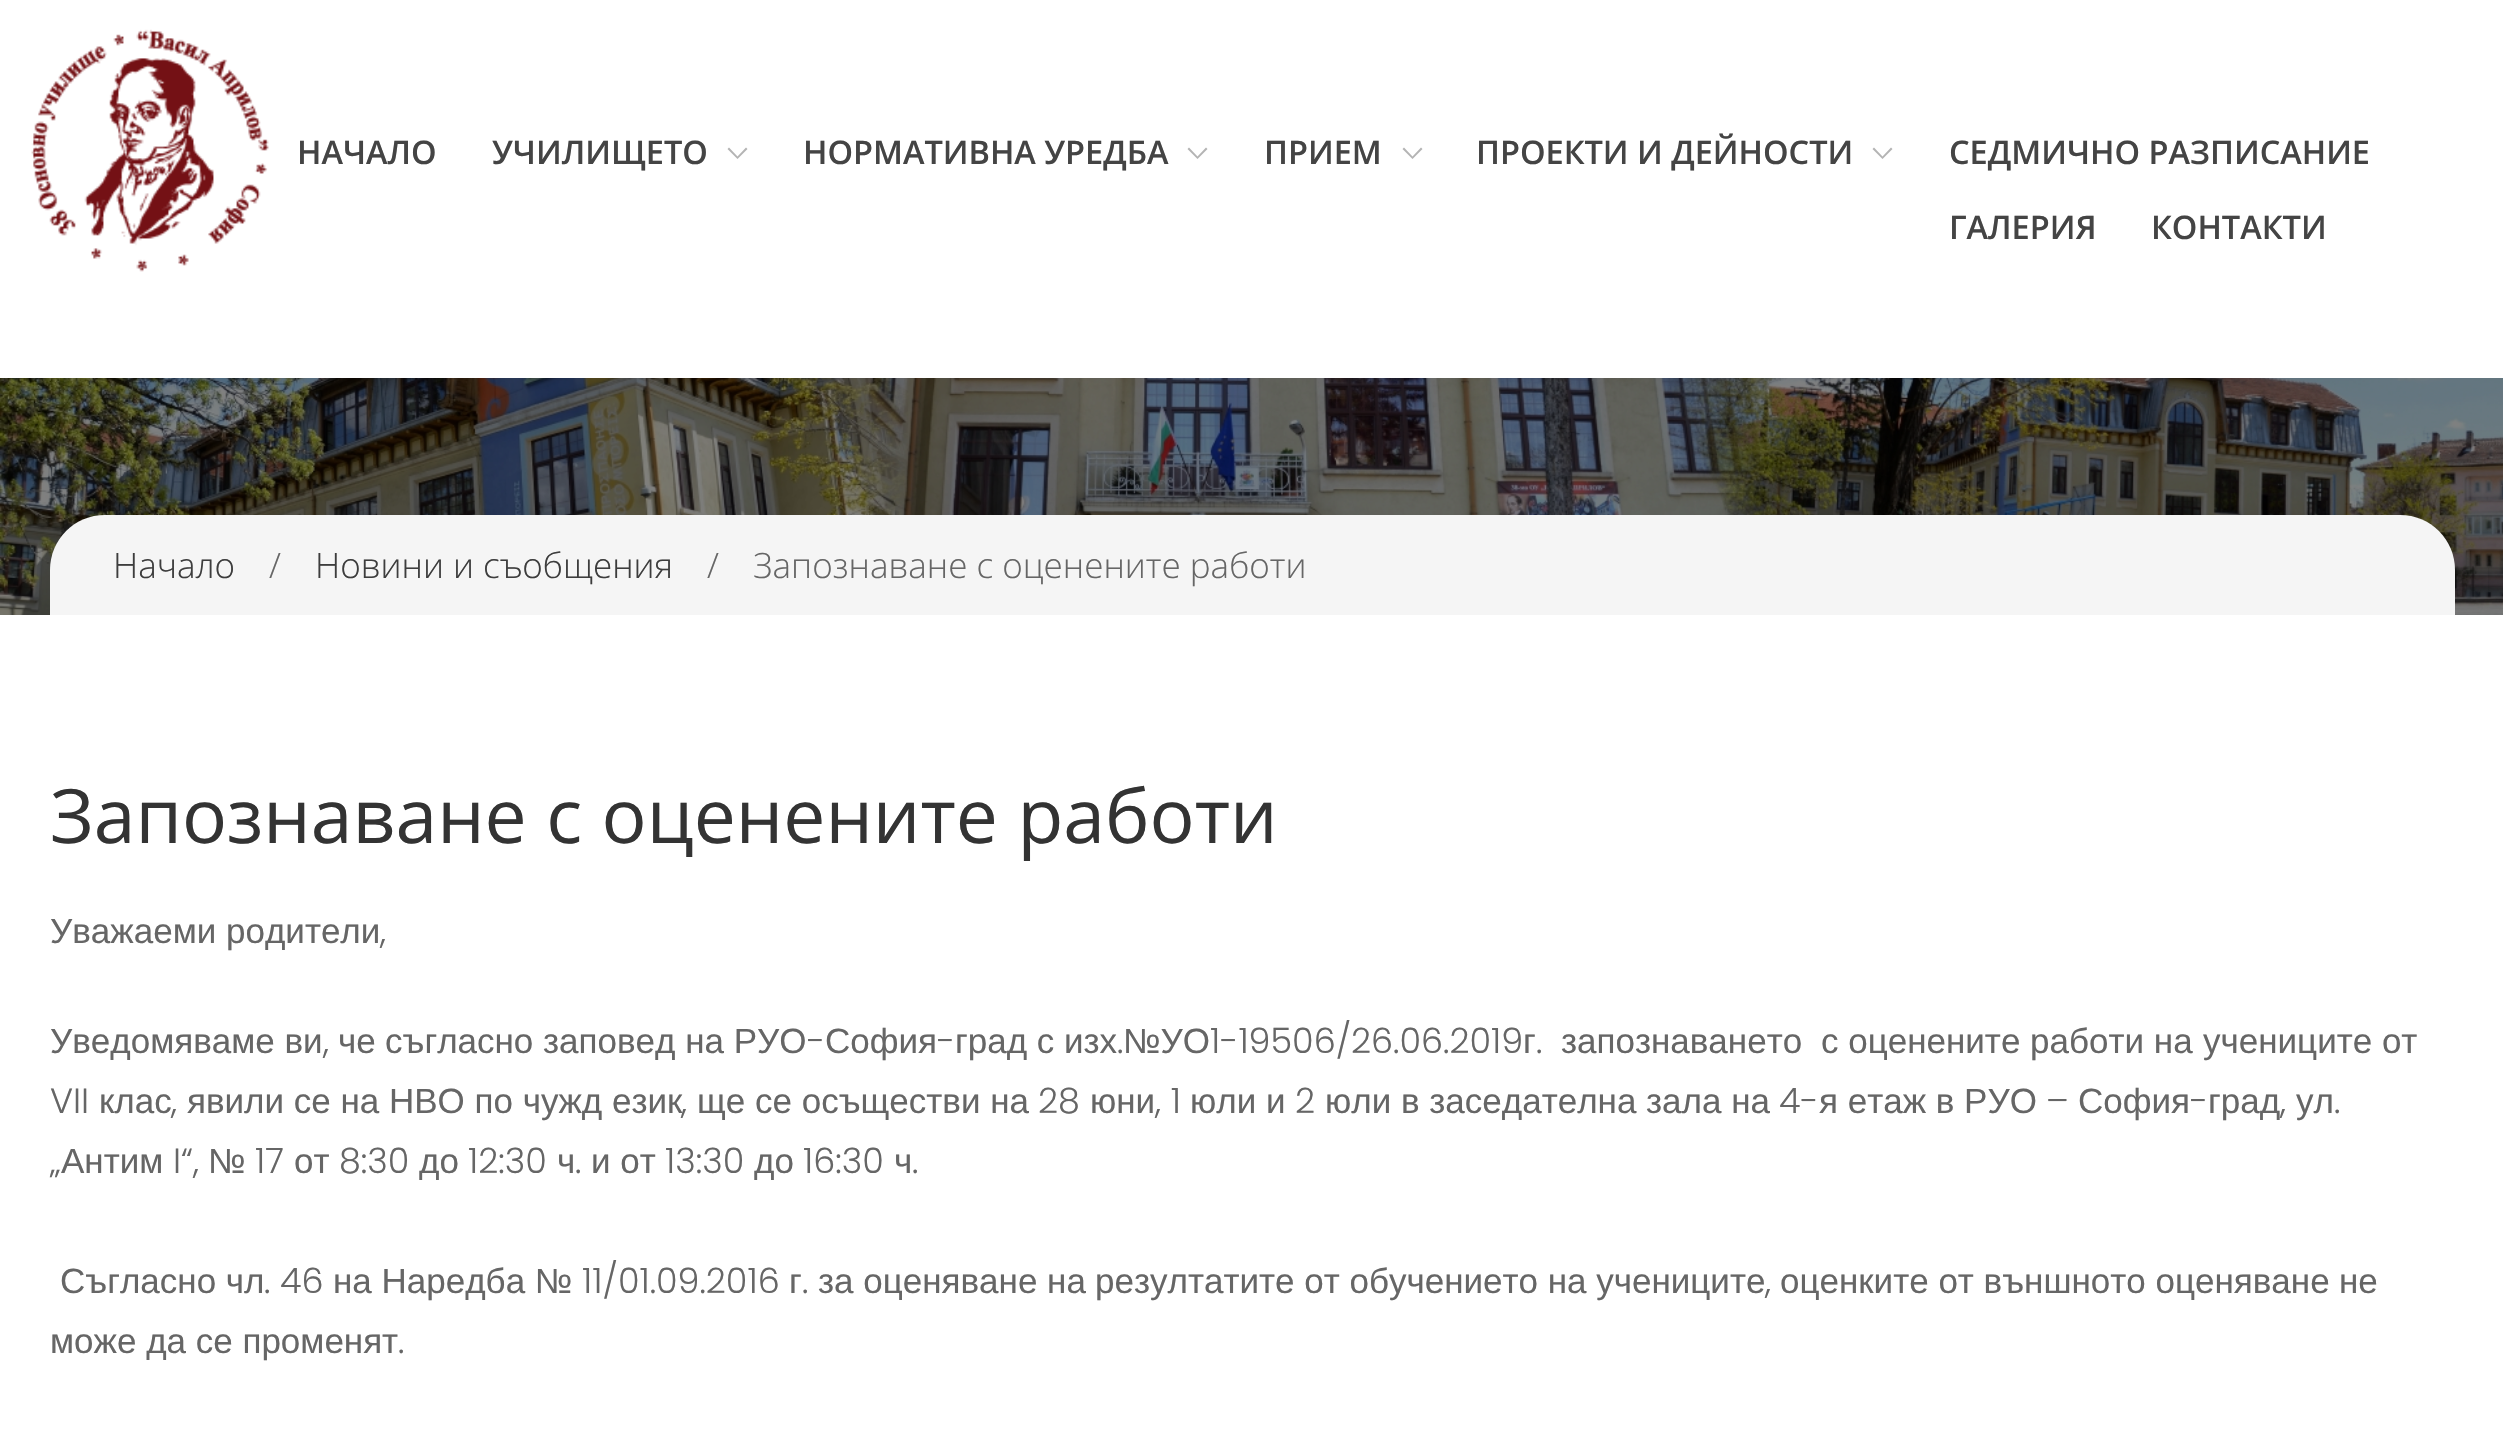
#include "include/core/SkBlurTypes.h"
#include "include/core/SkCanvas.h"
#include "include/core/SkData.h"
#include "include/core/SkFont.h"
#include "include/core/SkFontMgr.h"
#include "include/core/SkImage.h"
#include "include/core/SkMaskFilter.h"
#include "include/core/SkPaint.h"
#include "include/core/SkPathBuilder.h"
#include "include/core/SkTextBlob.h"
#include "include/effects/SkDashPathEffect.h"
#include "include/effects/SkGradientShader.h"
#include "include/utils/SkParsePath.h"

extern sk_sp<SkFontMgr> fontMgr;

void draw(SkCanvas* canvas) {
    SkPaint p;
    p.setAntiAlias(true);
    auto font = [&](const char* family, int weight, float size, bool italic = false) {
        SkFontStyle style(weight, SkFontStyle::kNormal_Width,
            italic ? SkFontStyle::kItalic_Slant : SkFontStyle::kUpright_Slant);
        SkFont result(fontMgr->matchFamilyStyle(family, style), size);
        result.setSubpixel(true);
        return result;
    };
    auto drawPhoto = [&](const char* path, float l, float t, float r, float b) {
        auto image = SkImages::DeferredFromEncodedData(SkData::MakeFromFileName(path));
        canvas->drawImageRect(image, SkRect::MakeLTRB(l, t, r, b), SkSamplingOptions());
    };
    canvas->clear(0xFFFFFFFF);
    drawPhoto("media/1.png", 31, 29, 269, 272);
    auto font1 = font("Open Sans", 600, 32.5f);
    p.setColor(0xFF444444);
    canvas->drawString("НАЧАЛО", 297, 164, font1, p);
    canvas->drawString("УЧИЛИЩЕТО", 492, 164, font1, p);
    p.setColor(0xFFB4B4B4);
    canvas->drawPath(SkPathBuilder().moveTo(737.5f, 159).lineTo(747.5f, 149).lineTo(746, 147.5f).lineTo(737.5f, 156.5f).lineTo(729, 147.5f).lineTo(727.5f, 149).close().detach(), p);
    p.setColor(0xFF444444);
    canvas->drawString("НОРМАТИВНА УРЕДБА", 803, 164, font1, p);
    p.setColor(0xFFB4B4B4);
    canvas->drawPath(SkPathBuilder().moveTo(1197.5f, 159).lineTo(1207.5f, 149).lineTo(1206, 147.5f).lineTo(1197.5f, 156.5f).lineTo(1189, 147.5f).lineTo(1187.5f, 149).close().detach(), p);
    p.setColor(0xFF444444);
    canvas->drawString("ПРИЕМ", 1264, 164, font1, p);
    p.setColor(0xFFB4B4B4);
    canvas->drawPath(SkPathBuilder().moveTo(1412.5f, 159).lineTo(1422.5f, 149).lineTo(1421, 147.5f).lineTo(1412.5f, 156.5f).lineTo(1404, 147.5f).lineTo(1402.5f, 149).close().detach(), p);
    p.setColor(0xFF444444);
    canvas->drawString("ПРОЕКТИ И ДЕЙНОСТИ", 1476, 164, font1, p);
    p.setColor(0xFFB4B4B4);
    canvas->drawPath(SkPathBuilder().moveTo(1882.5f, 159).lineTo(1892.5f, 149).lineTo(1891, 147.5f).lineTo(1882.5f, 156.5f).lineTo(1874, 147.5f).lineTo(1872.5f, 149).close().detach(), p);
    p.setColor(0xFF444444);
    {
        const struct { const char* s; float x, y; } items[] = {
            {"СЕДМИЧНО РАЗПИСАНИЕ", 1949, 164},
            {"ГАЛЕРИЯ", 1949, 239},
            {"КОНТАКТИ", 2151, 239},
        };
        for (auto [s, x, y] : items) {
            canvas->drawString(s, x, y, font1, p);
        }
    }
    drawPhoto("media/2.png", 0, 378, 2503, 615);
    p.setColor(0xFFF5F5F5);
    canvas->drawPath(SkPathBuilder().moveTo(105, 515).lineTo(2400, 515).cubicTo(2430.5f, 515, 2455, 539.5f, 2455, 570).lineTo(2455, 615).lineTo(50, 615).lineTo(50, 570).cubicTo(50, 539.5f, 74.5f, 515, 105, 515).close().detach(), p);
    auto font2 = font("Open Sans", 300, 35);
    p.setColor(0xFF3D3D3D);
    canvas->drawString("Начало", 113, 578, font2, p);
    p.setColor(0xFF666666);
    canvas->drawString("/", 269, 578, font2, p);
    p.setColor(0xFF3D3D3D);
    canvas->drawString("Новини и съобщения", 315, 578, font2, p);
    p.setColor(0xFF666666);
    canvas->drawString("/", 707, 578, font2, p);
    canvas->drawString("Запознаване с оценените работи", 753, 578, font2, p);
    auto font3 = font("Open Sans", 400, 75);
    p.setColor(0xFF333333);
    canvas->drawString("Запознаване с оценените работи", 50, 843, font3, p);
    auto font4 = font("Liberation Sans", 400, 35);
    p.setColor(0xFF666666);
    canvas->drawString("Уважаеми родители", 50, 943, font4, p);
    auto font5 = font("Poppins", 300, 35);
    canvas->drawString(",", 380, 943, font5, p);
    {
        const struct { const char* s; float x, y; } items[] = {
            {"Уведомяваме ви", 50, 1053},
            {"че", 338, 1053},
            {"съгласно заповед на РУО", 385, 1053},
        };
        for (auto [s, x, y] : items) {
            canvas->drawString(s, x, y, font4, p);
        }
    }
    canvas->drawString("-", 807, 1053, font5, p);
    canvas->drawString("София", 825, 1053, font4, p);
    canvas->drawString("-", 937, 1053, font5, p);
    {
        const struct { const char* s; float x, y; } items[] = {
            {"град с", 955, 1053},
            {"изх", 1064, 1053},
            {"№УО", 1123, 1053},
        };
        for (auto [s, x, y] : items) {
            canvas->drawString(s, x, y, font4, p);
        }
    }
    canvas->drawString("1-19506/26.06.2019", 1210, 1053, font5, p);
    {
        const struct { const char* s; float x, y; } items[] = {
            {"г", 1523, 1053},
            {"запознаването", 1561, 1053},
            {"с оценените работи на", 1821, 1053},
            {"учениците от", 2203, 1053},
        };
        for (auto [s, x, y] : items) {
            canvas->drawString(s, x, y, font4, p);
        }
    }
    {
        const struct { const char* s; float x, y; } items[] = {
            {",", 323, 1053},
            {".", 1117, 1053},
            {".", 1536, 1053},
            {"VII", 50, 1113},
        };
        for (auto [s, x, y] : items) {
            canvas->drawString(s, x, y, font5, p);
        }
    }
    {
        const struct { const char* s; float x, y; } items[] = {
            {"клас", 99, 1113},
            {"явили се на НВО по чужд език", 187, 1113},
            {"ще се осъществи на", 697, 1113},
        };
        for (auto [s, x, y] : items) {
            canvas->drawString(s, x, y, font4, p);
        }
    }
    canvas->drawString("28", 1038, 1113, font5, p);
    canvas->drawString("юни", 1090, 1113, font4, p);
    canvas->drawString(", 1", 1155, 1113, font5, p);
    canvas->drawString("юли и", 1190, 1113, font4, p);
    canvas->drawString("2", 1295, 1113, font5, p);
    canvas->drawString("юли в заседателна зала на", 1325, 1113, font4, p);
    canvas->drawString("4-", 1779, 1113, font5, p);
    canvas->drawString("я етаж в РУО", 1819, 1113, font4, p);
    canvas->drawString("–", 2046, 1113, font5, p);
    canvas->drawString("София", 2078, 1113, font4, p);
    canvas->drawString("-", 2190, 1113, font5, p);
    canvas->drawString("град", 2208, 1113, font4, p);
    canvas->drawString("ул", 2296, 1113, font4, p);
    {
        const struct { const char* s; float x, y; } items[] = {
            {",", 171, 1113},
            {",", 681, 1113},
            {",", 2280, 1113},
            {".", 2334, 1113},
            {"„", 50, 1173},
        };
        for (auto [s, x, y] : items) {
            canvas->drawString(s, x, y, font5, p);
        }
    }
    canvas->drawString("Антим", 61, 1173, font4, p);
    canvas->drawString("I“,", 173, 1173, font5, p);
    canvas->drawString("№", 208, 1173, font4, p);
    canvas->drawString("17", 255, 1173, font5, p);
    canvas->drawString("от", 294, 1173, font4, p);
    canvas->drawString("8:30", 339, 1173, font5, p);
    canvas->drawString("до", 419, 1173, font4, p);
    canvas->drawString("12:30", 468, 1173, font5, p);
    canvas->drawString("ч", 557, 1173, font4, p);
    canvas->drawString(".", 575, 1173, font5, p);
    canvas->drawString("и от", 591, 1173, font4, p);
    canvas->drawString("13:30", 665, 1173, font5, p);
    canvas->drawString("до", 754, 1173, font4, p);
    canvas->drawString("16:30", 803, 1173, font5, p);
    canvas->drawString("ч", 894, 1173, font4, p);
    canvas->drawString(".", 912, 1173, font5, p);
    canvas->drawString("Съгласно чл", 60, 1293, font4, p);
    canvas->drawString(". 46", 264, 1293, font5, p);
    canvas->drawString("на Наредба №", 333, 1293, font4, p);
    canvas->drawString("11/01.09.2016", 582, 1293, font5, p);
    canvas->drawString("г", 789, 1293, font4, p);
    canvas->drawString(".", 802, 1293, font5, p);
    canvas->drawString("за оценяване на", 818, 1293, font4, p);
    canvas->drawString("резултатите от обучението на учениците", 1095, 1293, font4, p);
    canvas->drawString(",", 1765, 1293, font5, p);
    {
        const struct { const char* s; float x, y; } items[] = {
            {"оценките от външното оценяване", 1780, 1293},
            {"не", 2339, 1293},
            {"може да се променят", 50, 1353},
        };
        for (auto [s, x, y] : items) {
            canvas->drawString(s, x, y, font4, p);
        }
    }
    canvas->drawString(".", 398, 1353, font5, p);
}
